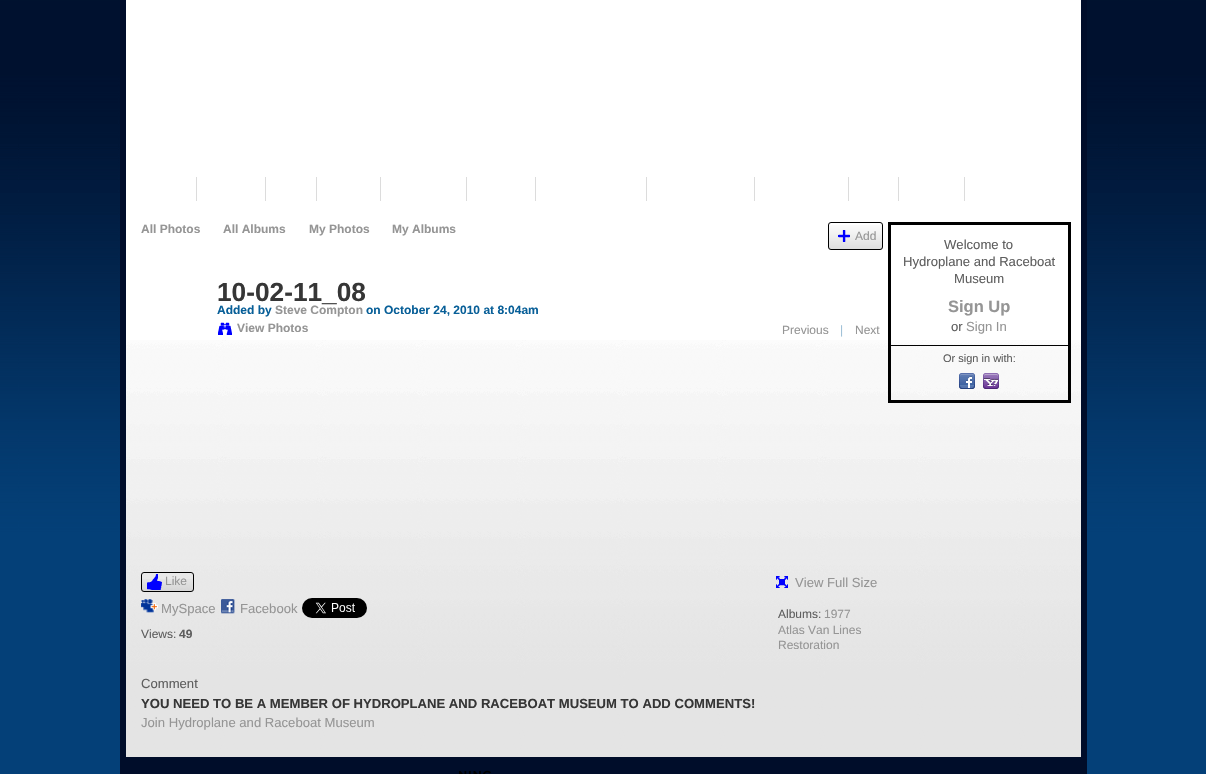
#include "include/core/SkBlurTypes.h"
#include "include/core/SkCanvas.h"
#include "include/core/SkData.h"
#include "include/core/SkFont.h"
#include "include/core/SkFontMgr.h"
#include "include/core/SkImage.h"
#include "include/core/SkMaskFilter.h"
#include "include/core/SkPaint.h"
#include "include/core/SkPathBuilder.h"
#include "include/core/SkTextBlob.h"
#include "include/effects/SkDashPathEffect.h"
#include "include/effects/SkGradientShader.h"
#include "include/utils/SkParsePath.h"

extern sk_sp<SkFontMgr> fontMgr;

void draw(SkCanvas* canvas) {
    SkPaint p;
    p.setAntiAlias(true);
    auto font = [&](const char* family, int weight, float size, bool italic = false) {
        SkFontStyle style(weight, SkFontStyle::kNormal_Width,
            italic ? SkFontStyle::kItalic_Slant : SkFontStyle::kUpright_Slant);
        SkFont result(fontMgr->matchFamilyStyle(family, style), size);
        result.setSubpixel(true);
        return result;
    };
    auto drawPhoto = [&](const char* path, float l, float t, float r, float b) {
        auto image = SkImages::DeferredFromEncodedData(SkData::MakeFromFileName(path));
        canvas->drawImageRect(image, SkRect::MakeLTRB(l, t, r, b), SkSamplingOptions());
    };
    canvas->clear(0xFFFFFFFF);
    drawPhoto("media/1.png", 0, 0, 1206, 774);
    {
        const struct { float l, t, r, b; SkColor color; } items[] = {
            {126, 0, 1081, 340, 0xFFFFFFFF},
            {1081, 0, 1087, 774, 0xFF000D2A},
            {120, 0, 126, 774, 0xFF000D2A},
            {196, 177, 197, 201, 0xFFDCDCDC},
            {265, 177, 266, 201, 0xFFDCDCDC},
            {316, 177, 317, 201, 0xFFDCDCDC},
            {380, 177, 381, 201, 0xFFDCDCDC},
            {466, 177, 467, 201, 0xFFDCDCDC},
            {535, 177, 536, 201, 0xFFDCDCDC},
            {646, 177, 647, 201, 0xFFDCDCDC},
            {754, 177, 755, 201, 0xFFDCDCDC},
            {848, 177, 849, 201, 0xFFDCDCDC},
            {898, 177, 899, 201, 0xFFDCDCDC},
            {964, 177, 965, 201, 0xFFDCDCDC},
        };
        for (auto [l, t, r, b, color] : items) {
            p.setColor(color);
            canvas->drawRect(SkRect::MakeLTRB(l, t, r, b), p);
        }
    }
    drawPhoto("media/2.png", 126, 340, 1081, 757);
    auto font1 = font("Liberation Sans", 700, 12);
    p.setColor(0xFF959595);
    {
        const struct { const char* s; float x, y; } items[] = {
            {"All Photos", 141, 233},
            {"All Albums", 223, 233},
            {"My Photos", 309, 233},
            {"My Albums", 392, 233},
        };
        for (auto [s, x, y] : items) {
            canvas->drawString(s, x, y, font1, p);
        }
    }
    drawPhoto("media/3.png", 828, 225, 883, 250);
    p.setStyle(SkPaint::kStroke_Style);
    p.setStrokeWidth(1);
    p.setColor(0xFF000000);
    canvas->drawRoundRect(SkRect::MakeLTRB(828.5f, 222.5f, 882.5f, 249.5f), 2.5f, 2.5f, p);
    drawPhoto("media/4.png", 838, 230, 850, 242);
    auto font2 = font("Liberation Sans", 400, 12);
    p.setStyle(SkPaint::kFill_Style);
    p.setColor(0xFF959595);
    canvas->drawString("Add", 855, 240, font2, p);
    auto font3 = font("Liberation Sans", 700, 26.25f);
    p.setColor(0xFF363636);
    canvas->drawString("10-02-11_08", 217, 301, font3, p);
    p.setColor(0xFF085F98);
    canvas->drawString("Added by", 217, 314, font1, p);
    p.setColor(0xFF959595);
    canvas->drawString("Steve Compton", 275, 314, font1, p);
    p.setColor(0xFF085F98);
    canvas->drawString("on October 24, 2010 at 8:04am", 366, 314, font1, p);
    drawPhoto("media/5.png", 218, 322, 232, 335);
    p.setColor(0xFF959595);
    canvas->drawString("View Photos", 237, 332, font1, p);
    canvas->drawString("Previous", 782, 334, font2, p);
    p.setColor(0xFF9CBFD6);
    canvas->drawString("|", 840, 334, font2, p);
    p.setColor(0xFF959595);
    canvas->drawString("Next", 855, 334, font2, p);
    drawPhoto("media/6.png", 141, 579, 194, 592);
    p.setStyle(SkPaint::kStroke_Style);
    p.setColor(0xFF000000);
    canvas->drawRoundRect(SkRect::MakeLTRB(141.5f, 572.5f, 193.5f, 591.5f), 2.5f, 2.5f, p);
    drawPhoto("media/7.png", 147, 574, 162, 590);
    p.setStyle(SkPaint::kFill_Style);
    p.setColor(0xFF959595);
    canvas->drawString("Like", 165, 585, font2, p);
    drawPhoto("media/8.png", 141, 599, 158, 613);
    auto font4 = font("Liberation Sans", 400, 13.1f);
    canvas->drawString("MySpace", 161, 613, font4, p);
    drawPhoto("media/9.png", 221, 599, 235, 614);
    canvas->drawString("Facebook", 240, 613, font4, p);
    drawPhoto("media/10.png", 302, 598, 367, 618);
    p.setColor(0xFF5E5E5E);
    canvas->drawString("Views:", 141, 638, font2, p);
    canvas->drawString("49", 179, 638, font1, p);
    drawPhoto("media/11.png", 776, 576, 788, 588);
    p.setColor(0xFF959595);
    canvas->drawString("View Full Size", 795, 587, font4, p);
    p.setColor(0xFF5E5E5E);
    canvas->drawString("Albums:", 778, 618, font2, p);
    p.setColor(0xFF959595);
    {
        const struct { const char* s; float x, y; } items[] = {
            {"1977", 824, 618},
            {"Atlas Van Lines", 778, 634},
            {"Restoration", 778, 649},
        };
        for (auto [s, x, y] : items) {
            canvas->drawString(s, x, y, font2, p);
        }
    }
    p.setColor(0xFF5E5E5E);
    canvas->drawString("Comment", 141, 688, font4, p);
    auto font5 = font("Liberation Sans", 700, 13.1f);
    p.setColor(0xFF363636);
    canvas->drawString("YOU NEED TO BE A MEMBER OF HYDROPLANE AND RACEBOAT MUSEUM TO ADD COMMENTS!", 141, 708, font5, p);
    p.setColor(0xFF959595);
    canvas->drawString("Join Hydroplane and Raceboat Museum", 141, 727, font4, p);
    p.setStyle(SkPaint::kStroke_Style);
    p.setStrokeWidth(3);
    p.setColor(0xFF000000);
    canvas->drawRect(SkRect::MakeLTRB(889.5f, 223.5f, 1069.5f, 401.5f), p);
    p.setStyle(SkPaint::kFill_Style);
    p.setColor(0xFF5E5E5E);
    {
        const struct { const char* s; float x, y; } items[] = {
            {"Welcome to", 944, 249},
            {"Hydroplane and Raceboat", 903, 266},
            {"Museum", 954, 283},
        };
        for (auto [s, x, y] : items) {
            canvas->drawString(s, x, y, font4, p);
        }
    }
    auto font6 = font("Liberation Sans", 700, 16.5f);
    p.setColor(0xFF959595);
    canvas->drawString("Sign Up", 948, 312, font6, p);
    p.setColor(0xFF5E5E5E);
    canvas->drawString("or", 951, 331, font4, p);
    p.setColor(0xFF959595);
    canvas->drawString("Sign In", 966, 331, font4, p);
    p.setColor(0xFF000000);
    canvas->drawRect(SkRect::MakeLTRB(891, 345, 1068, 346), p);
    auto font7 = font("Liberation Sans", 400, 11);
    p.setColor(0xFF5E5E5E);
    canvas->drawString("Or sign in with:", 943, 362, font7, p);
    drawPhoto("media/12.png", 959, 373, 975, 389);
    drawPhoto("media/13.png", 983, 373, 999, 389);
    p.setColor(0xFF000D2A);
    canvas->drawRect(SkRect::MakeLTRB(126, 757, 1081, 774), p);
    drawPhoto("media/14.png", 459, 770, 491, 774);
}
